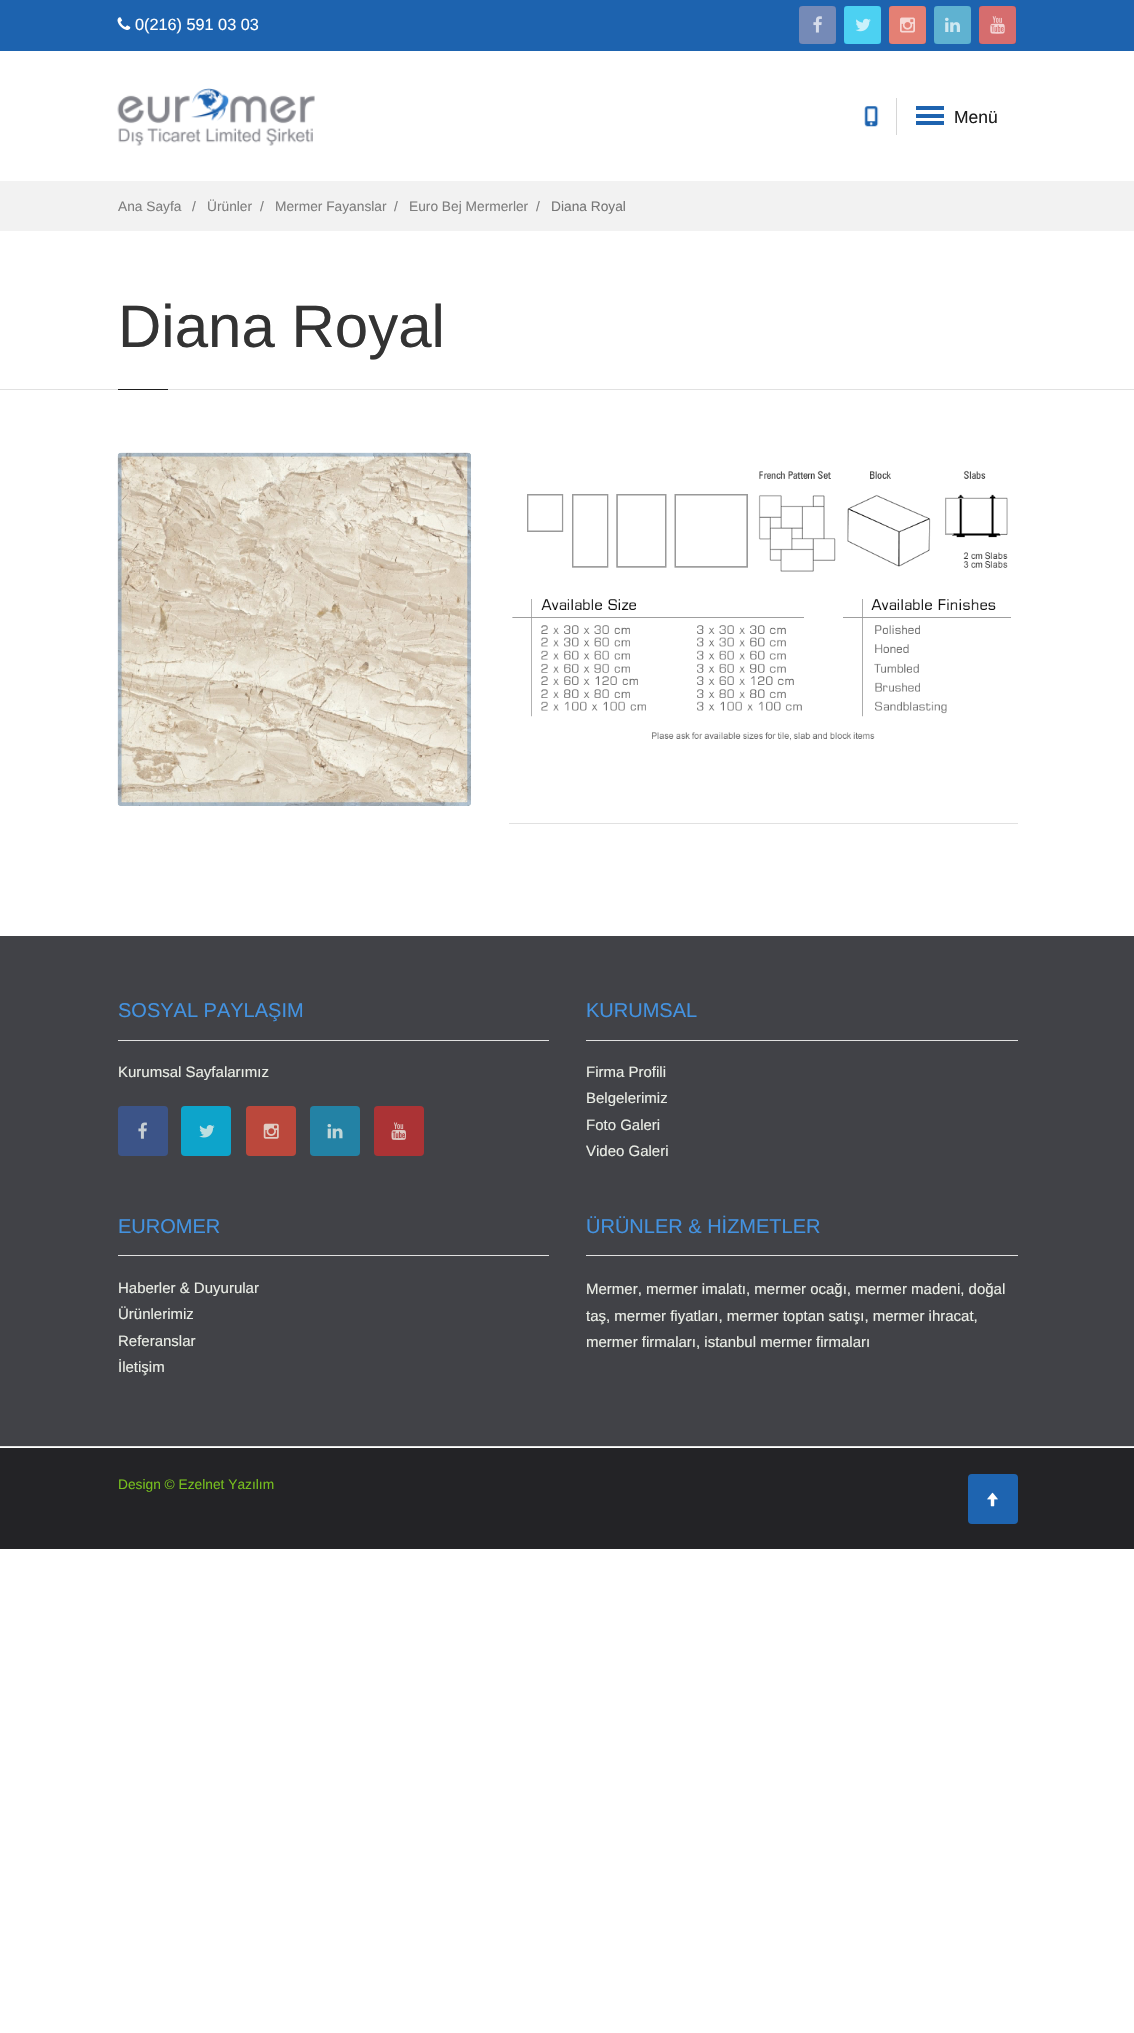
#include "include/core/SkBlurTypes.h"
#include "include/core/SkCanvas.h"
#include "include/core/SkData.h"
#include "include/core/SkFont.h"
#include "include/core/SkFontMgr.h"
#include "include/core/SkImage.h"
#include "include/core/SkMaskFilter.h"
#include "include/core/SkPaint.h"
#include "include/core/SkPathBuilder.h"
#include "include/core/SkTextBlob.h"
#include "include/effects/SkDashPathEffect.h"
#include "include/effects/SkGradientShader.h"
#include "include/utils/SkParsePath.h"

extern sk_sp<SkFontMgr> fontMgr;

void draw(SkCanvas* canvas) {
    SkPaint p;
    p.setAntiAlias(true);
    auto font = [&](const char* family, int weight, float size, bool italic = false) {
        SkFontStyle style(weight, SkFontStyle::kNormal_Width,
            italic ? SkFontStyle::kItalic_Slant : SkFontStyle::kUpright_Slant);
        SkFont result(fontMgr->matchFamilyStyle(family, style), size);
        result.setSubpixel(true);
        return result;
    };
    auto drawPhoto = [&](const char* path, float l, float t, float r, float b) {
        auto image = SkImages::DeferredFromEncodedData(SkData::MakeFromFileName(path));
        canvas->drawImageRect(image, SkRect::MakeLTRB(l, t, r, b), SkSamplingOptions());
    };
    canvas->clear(0xFFFFFFFF);
    p.setColor(0xFF1D63AF);
    canvas->drawRect(SkRect::MakeLTRB(0, 0, 1134, 51), p);
    drawPhoto("media/1.png", 117, 17, 131, 30);
    auto font1 = font("Arimo", 400, 16.25f);
    p.setColor(0xFFFFFFFF);
    canvas->drawString("0(216) 591 03 03", 135, 30, font1, p);
    canvas->drawRoundRect(SkRect::MakeLTRB(799, 6, 836, 44), 4, 4, p);
    p.setColor(0xB33B5998);
    canvas->drawRoundRect(SkRect::MakeLTRB(799, 6, 836, 44), 2.5f, 2.5f, p);
    drawPhoto("media/2.png", 813, 16, 822, 33);
    p.setColor(0xFFFFFFFF);
    canvas->drawRoundRect(SkRect::MakeLTRB(844, 6, 881, 44), 4, 4, p);
    p.setColor(0xB300BDEC);
    canvas->drawRoundRect(SkRect::MakeLTRB(844, 6, 881, 44), 2.5f, 2.5f, p);
    drawPhoto("media/3.png", 855, 18, 871, 32);
    p.setColor(0xFFFFFFFF);
    canvas->drawRoundRect(SkRect::MakeLTRB(889, 6, 926, 44), 4, 4, p);
    p.setColor(0xB3D94A39);
    canvas->drawRoundRect(SkRect::MakeLTRB(889, 6, 926, 44), 2.5f, 2.5f, p);
    drawPhoto("media/4.png", 900, 17, 915, 33);
    p.setColor(0xFFFFFFFF);
    canvas->drawRoundRect(SkRect::MakeLTRB(934, 6, 971, 44), 4, 4, p);
    p.setColor(0xB31B92BD);
    canvas->drawRoundRect(SkRect::MakeLTRB(934, 6, 971, 44), 2.5f, 2.5f, p);
    drawPhoto("media/5.png", 945, 17, 960, 32);
    p.setColor(0xFFFFFFFF);
    canvas->drawRoundRect(SkRect::MakeLTRB(979, 6, 1016, 44), 4, 4, p);
    p.setColor(0xB3C52F30);
    canvas->drawRoundRect(SkRect::MakeLTRB(979, 6, 1016, 44), 2.5f, 2.5f, p);
    drawPhoto("media/6.png", 990, 16, 1005, 34);
    drawPhoto("media/7.png", 117, 88, 315, 146);
    drawPhoto("media/8.png", 864, 106, 879, 127);
    {
        const struct { float l, t, r, b; SkColor color; } items[] = {
            {896, 98, 897, 135, 0xFFD6D6D6},
            {916, 106, 944, 110, 0xFF1D63AF},
            {916, 114, 944, 118, 0xFF1D63AF},
        };
        for (auto [l, t, r, b, color] : items) {
            p.setColor(color);
            canvas->drawRect(SkRect::MakeLTRB(l, t, r, b), p);
        }
    }
    auto font2 = font("Arimo", 400, 17.5f);
    p.setColor(0xFF1E1E1E);
    canvas->drawString("Menü", 954, 123, font2, p);
    p.setColor(0xFF1D63AF);
    canvas->drawRect(SkRect::MakeLTRB(916, 121, 944, 125), p);
    p.setColor(0xFFF2F2F2);
    canvas->drawRect(SkRect::MakeLTRB(0, 181, 1134, 231), p);
    auto font3 = font("Arimo", 400, 13.75f);
    p.setColor(0xFF7F7F7F);
    {
        const struct { const char* s; float x, y; } items[] = {
            {"Ana Sayfa", 118, 211},
            {"/", 192, 211},
            {"Ürünler", 207, 211},
            {"/", 260, 211},
            {"Mermer Fayanslar", 275, 211},
            {"/", 394, 211},
            {"Euro Bej Mermerler", 409, 211},
            {"/", 536, 211},
        };
        for (auto [s, x, y] : items) {
            canvas->drawString(s, x, y, font3, p);
        }
    }
    p.setColor(0xFF777777);
    canvas->drawString("Diana Royal", 551, 211, font3, p);
    p.setColor(0xFFE1E1E1);
    canvas->drawRect(SkRect::MakeLTRB(0, 389, 1134, 390), p);
    auto font4 = font("Arimo", 400, 60);
    p.setColor(0xFF333333);
    canvas->drawString("Diana Royal", 118, 347, font4, p);
    p.setColor(0xFF1E1E1E);
    canvas->drawRect(SkRect::MakeLTRB(118, 389, 168, 390), p);
    drawPhoto("media/9.png", 117, 452, 471, 806);
    drawPhoto("media/10.png", 512, 470, 1011, 741);
    {
        const struct { float l, t, r, b; SkColor color; } items[] = {
            {509, 823, 1018, 824, 0xFFE1E1E1},
            {0, 936, 1134, 1446, 0xFF414247},
            {118, 1040, 549, 1041, 0xFFE1E1E1},
        };
        for (auto [l, t, r, b, color] : items) {
            p.setColor(color);
            canvas->drawRect(SkRect::MakeLTRB(l, t, r, b), p);
        }
    }
    auto font5 = font("Arimo", 400, 20);
    p.setColor(0xFF4392E0);
    canvas->drawString("SOSYAL PAYLAŞIM", 118, 1017, font5, p);
    auto font6 = font("Arimo", 400, 15);
    p.setColor(0xFFE9ECE5);
    canvas->drawString("Kurumsal Sayfalarımız", 118, 1077, font6, p);
    p.setColor(0xFF3C5488);
    canvas->drawRoundRect(SkRect::MakeLTRB(118, 1106, 168, 1156), 4, 4, p);
    drawPhoto("media/11.png", 138, 1122, 147, 1139);
    p.setColor(0xFF0DA4CB);
    canvas->drawRoundRect(SkRect::MakeLTRB(181, 1106, 231, 1156), 4, 4, p);
    drawPhoto("media/12.png", 199, 1125, 215, 1138);
    p.setColor(0xFFBB483C);
    canvas->drawRoundRect(SkRect::MakeLTRB(246, 1106, 296, 1156), 4, 4, p);
    drawPhoto("media/13.png", 263, 1123, 279, 1139);
    p.setColor(0xFF2382A5);
    canvas->drawRoundRect(SkRect::MakeLTRB(310, 1106, 360, 1156), 4, 4, p);
    drawPhoto("media/14.png", 327, 1124, 343, 1139);
    p.setColor(0xFFAB3335);
    canvas->drawRoundRect(SkRect::MakeLTRB(374, 1106, 424, 1156), 4, 4, p);
    drawPhoto("media/15.png", 391, 1122, 406, 1140);
    p.setColor(0xFFE1E1E1);
    canvas->drawRect(SkRect::MakeLTRB(586, 1040, 1018, 1041), p);
    p.setColor(0xFF4392E0);
    canvas->drawString("KURUMSAL", 586, 1017, font5, p);
    p.setColor(0xFFE9ECE5);
    {
        const struct { const char* s; float x, y; } items[] = {
            {"Firma Profili", 586, 1077},
            {"Belgelerimiz", 586, 1103},
            {"Foto Galeri", 586, 1130},
            {"Video Galeri", 586, 1156},
        };
        for (auto [s, x, y] : items) {
            canvas->drawString(s, x, y, font6, p);
        }
    }
    p.setColor(0xFFE1E1E1);
    canvas->drawRect(SkRect::MakeLTRB(118, 1255, 549, 1256), p);
    p.setColor(0xFF4392E0);
    canvas->drawString("EUROMER", 118, 1233, font5, p);
    p.setColor(0xFFE9ECE5);
    {
        const struct { const char* s; float x, y; } items[] = {
            {"Haberler & Duyurular", 118, 1293},
            {"Ürünlerimiz", 118, 1319},
            {"Referanslar", 118, 1346},
            {"İletişim", 118, 1372},
        };
        for (auto [s, x, y] : items) {
            canvas->drawString(s, x, y, font6, p);
        }
    }
    p.setColor(0xFFE1E1E1);
    canvas->drawRect(SkRect::MakeLTRB(586, 1255, 1018, 1256), p);
    p.setColor(0xFF4392E0);
    canvas->drawString("ÜRÜNLER & HİZMETLER", 586, 1233, font5, p);
    p.setColor(0xFFE9ECE5);
    {
        const struct { const char* s; float x, y; } items[] = {
            {"Mermer, mermer imalatı, mermer ocağı, mermer madeni, doğal", 586, 1294},
            {"taş, mermer fiyatları, mermer toptan satışı, mermer ihracat,", 586, 1321},
            {"mermer firmaları, istanbul mermer firmaları", 586, 1347},
        };
        for (auto [s, x, y] : items) {
            canvas->drawString(s, x, y, font6, p);
        }
    }
    p.setColor(0xFF232326);
    canvas->drawRect(SkRect::MakeLTRB(0, 1448, 1134, 1549), p);
    p.setColor(0xFFE1E1E1);
    canvas->drawRect(SkRect::MakeLTRB(0, 1446, 1134, 1447), p);
    p.setColor(0xFF76BE1E);
    canvas->drawString("Design © Ezelnet Yazılım", 118, 1489, font3, p);
    p.setColor(0xFF1E64B0);
    canvas->drawRoundRect(SkRect::MakeLTRB(968, 1474, 1018, 1524), 4, 4, p);
    drawPhoto("media/16.png", 987, 1492, 998, 1507);
}
